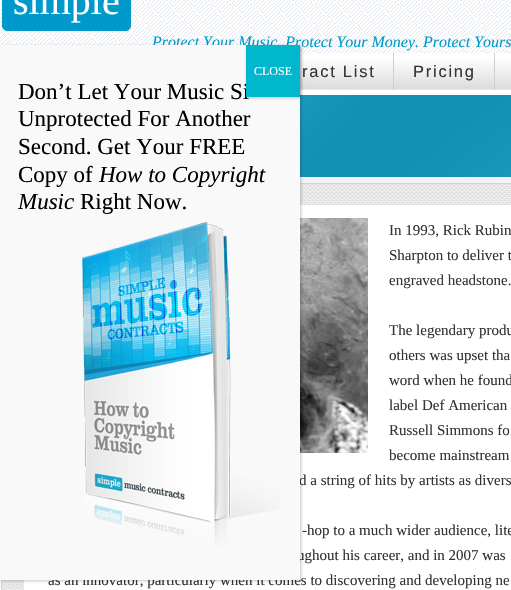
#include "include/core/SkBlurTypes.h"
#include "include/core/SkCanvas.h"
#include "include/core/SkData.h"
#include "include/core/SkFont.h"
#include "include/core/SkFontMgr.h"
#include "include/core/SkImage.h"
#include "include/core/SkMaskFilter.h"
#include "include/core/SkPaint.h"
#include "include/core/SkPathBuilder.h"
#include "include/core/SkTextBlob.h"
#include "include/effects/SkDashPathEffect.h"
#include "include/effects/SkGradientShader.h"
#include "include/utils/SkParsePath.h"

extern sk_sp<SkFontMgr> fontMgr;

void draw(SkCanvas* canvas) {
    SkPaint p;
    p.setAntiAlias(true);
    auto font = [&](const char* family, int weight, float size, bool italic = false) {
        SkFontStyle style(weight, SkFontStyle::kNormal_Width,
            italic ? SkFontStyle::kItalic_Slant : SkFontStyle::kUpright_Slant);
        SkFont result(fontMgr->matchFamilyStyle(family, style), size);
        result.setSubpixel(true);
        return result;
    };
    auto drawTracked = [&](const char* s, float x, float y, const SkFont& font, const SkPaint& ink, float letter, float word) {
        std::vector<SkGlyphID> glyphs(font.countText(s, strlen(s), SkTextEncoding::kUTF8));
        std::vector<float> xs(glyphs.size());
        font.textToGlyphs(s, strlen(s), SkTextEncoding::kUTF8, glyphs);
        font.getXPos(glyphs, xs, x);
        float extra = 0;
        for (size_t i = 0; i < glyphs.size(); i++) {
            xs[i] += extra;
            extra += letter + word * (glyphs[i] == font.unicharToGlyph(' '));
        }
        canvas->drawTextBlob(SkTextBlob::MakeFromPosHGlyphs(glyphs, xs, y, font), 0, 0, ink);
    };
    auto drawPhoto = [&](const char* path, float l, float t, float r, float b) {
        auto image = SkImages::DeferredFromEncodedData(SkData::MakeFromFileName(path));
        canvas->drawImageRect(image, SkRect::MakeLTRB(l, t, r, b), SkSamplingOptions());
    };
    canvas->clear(0xFFFFFFFF);
    drawPhoto("media/1.png", 0, 580, 1, 590);
    drawPhoto("media/2.png", 0, 0, 511, 53);
    p.setColor(0xFF0099CC);
    canvas->drawRoundRect(SkRect::MakeLTRB(2.5f, -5.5f, 130.5f, 30.5f), 4.5f, 4.5f, p);
    p.setStyle(SkPaint::kStroke_Style);
    p.setStrokeWidth(1);
    canvas->drawRoundRect(SkRect::MakeLTRB(2.5f, -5.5f, 130.5f, 30.5f), 4.5f, 4.5f, p);
    auto font1 = font("Liberation Serif", 400, 40);
    p.setStyle(SkPaint::kFill_Style);
    p.setColor(0xFFFFFFFF);
    canvas->drawString("simple", 13, 14, font1, p);
    auto font2 = font("Liberation Serif", 400, 16, true);
    p.setColor(0xFF0099CC);
    canvas->drawString("Protect Your Music. Protect Your Money. Protect Yours", 152, 47, font2, p);
    p.setColor(0xFFE9E9E9);
    canvas->drawRect(SkRect::MakeLTRB(300, 89, 511, 90), p);
    drawPhoto("media/3.png", 300, 60, 511, 89);
    p.setColor(0xFFD0D0D0);
    canvas->drawRect(SkRect::MakeLTRB(393, 53, 394, 90), p);
    auto font3 = font("Liberation Sans", 400, 16.5f);
    p.setColor(0xFF333333);
    drawTracked("ract List", 302, 77, font3, p, 1.75f, 0);
    p.setColor(0xFFD0D0D0);
    canvas->drawRect(SkRect::MakeLTRB(494, 53, 495, 90), p);
    p.setColor(0xFF333333);
    drawTracked("Pricing", 413, 77, font3, p, 1.75f, 0);
    drawPhoto("media/4.png", 300, 95, 511, 183);
    drawPhoto("media/5.png", 2, 184, 511, 590);
    p.setStyle(SkPaint::kStroke_Style);
    p.setColor(0xFFD3D3D3);
    canvas->drawRect(SkRect::MakeLTRB(1.5f, 183.5f, 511.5f, 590.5f), p);
    drawPhoto("media/6.png", 300, 205, 511, 234);
    p.setStyle(SkPaint::kFill_Style);
    p.setColor(0xFFFFFFFF);
    canvas->drawRect(SkRect::MakeLTRB(24, 234, 511, 590), p);
    drawPhoto("media/7.png", 300, 218, 368, 453);
    auto font4 = font("Liberation Serif", 400, 15);
    p.setColor(0xFF333333);
    {
        const struct { const char* s; float x, y; } items[] = {
            {"In 1993, Rick Rubin", 389, 235},
            {"Sharpton to deliver t", 389, 260},
            {"engraved headstone.", 389, 285},
            {"The legendary produ", 389, 335},
            {"others was upset tha", 389, 360},
            {"word when he found", 389, 385},
            {"label Def American", 389, 410},
            {"Russell Simmons fo", 389, 435},
            {"become mainstream", 389, 460},
            {"d a string of hits by artists as divers", 299, 485},
            {"-hop to a much wider audience, lite", 302, 535},
            {"ughout his career, and in 2007 was", 297, 560},
            {"as an innovator, particularly when it comes to discovering and developing ne", 48, 585},
        };
        for (auto [s, x, y] : items) {
            canvas->drawString(s, x, y, font4, p);
        }
    }
    p.setColor(0x3B020202);
    p.setMaskFilter(SkMaskFilter::MakeBlur(kNormal_SkBlurStyle, 1.5f));
    canvas->drawRect(SkRect::MakeLTRB(1, 46, 301, 581), p);
    p.setMaskFilter(nullptr);
    p.setColor(0xFFF9F9F9);
    canvas->drawRect(SkRect::MakeLTRB(0, 45, 300, 580), p);
    p.setColor(0x3B020202);
    p.setMaskFilter(SkMaskFilter::MakeBlur(kNormal_SkBlurStyle, 1.5f));
    canvas->drawRect(SkRect::MakeLTRB(247, 46, 301, 98), p);
    p.setMaskFilter(nullptr);
    auto font5 = font("Liberation Serif", 400, 23);
    p.setColor(0xFF000000);
    canvas->drawString("Don’t Let Your Music Si", 18, 99, font5, p);
    p.setColor(0xFF00B7CD);
    canvas->drawRect(SkRect::MakeLTRB(246, 45, 300, 97), p);
    auto font6 = font("Liberation Serif", 400, 12);
    p.setColor(0xFFFFFFFF);
    canvas->drawString("CLOSE", 254, 75, font6, p);
    p.setColor(0xFF000000);
    {
        const struct { const char* s; float x, y; } items[] = {
            {"Unprotected For Another", 18, 126},
            {"Second. Get Your FREE", 18, 154},
            {"Copy of", 18, 182},
        };
        for (auto [s, x, y] : items) {
            canvas->drawString(s, x, y, font5, p);
        }
    }
    auto font7 = font("Liberation Serif", 400, 23, true);
    canvas->drawString("How to Copyright", 99, 182, font7, p);
    canvas->drawString("Music", 18, 209, font7, p);
    canvas->drawString("Right Now.", 80, 209, font5, p);
    drawPhoto("media/8.png", 82, 222, 280, 546);
}
